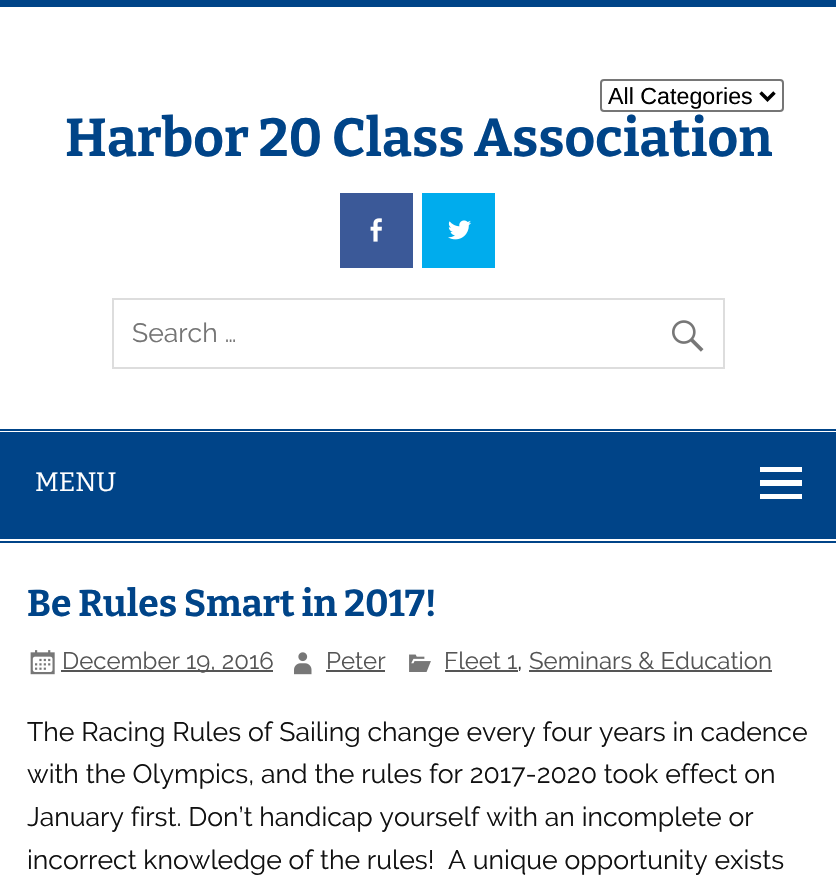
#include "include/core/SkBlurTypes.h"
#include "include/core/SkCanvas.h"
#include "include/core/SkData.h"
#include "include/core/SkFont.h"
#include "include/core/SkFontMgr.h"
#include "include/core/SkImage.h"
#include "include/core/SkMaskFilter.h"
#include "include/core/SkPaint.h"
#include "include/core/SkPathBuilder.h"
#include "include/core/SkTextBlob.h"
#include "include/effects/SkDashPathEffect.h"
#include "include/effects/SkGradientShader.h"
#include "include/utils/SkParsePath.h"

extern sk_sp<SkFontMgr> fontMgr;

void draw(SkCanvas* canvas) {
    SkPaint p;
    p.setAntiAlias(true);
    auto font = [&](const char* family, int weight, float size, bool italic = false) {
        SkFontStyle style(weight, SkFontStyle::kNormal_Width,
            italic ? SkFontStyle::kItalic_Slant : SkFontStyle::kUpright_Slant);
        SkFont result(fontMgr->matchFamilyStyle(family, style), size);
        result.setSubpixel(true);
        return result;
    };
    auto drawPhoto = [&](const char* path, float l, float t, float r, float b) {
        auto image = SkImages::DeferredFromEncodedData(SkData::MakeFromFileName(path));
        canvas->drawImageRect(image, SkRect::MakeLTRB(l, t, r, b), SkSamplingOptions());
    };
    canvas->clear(0xFFFFFFFF);
    p.setColor(0xFF004488);
    canvas->drawRect(SkRect::MakeLTRB(0, 0, 836, 7), p);
    p.setStyle(SkPaint::kStroke_Style);
    p.setStrokeWidth(2);
    p.setColor(0xFF767676);
    canvas->drawRoundRect(SkRect::MakeLTRB(601, 80, 783, 111), 3, 3, p);
    p.setStrokeWidth(3.5f);
    p.setColor(0xFF000000);
    canvas->drawPath(SkPathBuilder().moveTo(760.5f, 92.5f).lineTo(767.5f, 99.5f).lineTo(774.5f, 92.5f).detach(), p);
    auto font1 = font("Liberation Sans", 400, 23.25f);
    p.setStyle(SkPaint::kFill_Style);
    canvas->drawString("All Categories", 608, 104, font1, p);
    auto font2 = font("Bitter", 700, 53.25f);
    p.setColor(0xFF004488);
    canvas->drawString("Harbor 20 Class Association", 65, 156, font2, p);
    p.setColor(0xFF3B5998);
    canvas->drawRect(SkRect::MakeLTRB(340, 193, 413, 268), p);
    drawPhoto("media/1.png", 370, 218, 382, 242);
    p.setColor(0xFF00ACED);
    canvas->drawRect(SkRect::MakeLTRB(422, 193, 495, 268), p);
    drawPhoto("media/2.png", 448, 220, 471, 240);
    p.setStyle(SkPaint::kStroke_Style);
    p.setStrokeWidth(2);
    p.setColor(0xFFDDDDDD);
    canvas->drawRect(SkRect::MakeLTRB(113, 299, 724, 368), p);
    auto font3 = font("Raleway", 400, 26.6f);
    p.setStyle(SkPaint::kFill_Style);
    p.setColor(0xFF757575);
    canvas->drawString("Search …", 132, 342, font3, p);
    drawPhoto("media/3.png", 672, 320, 704, 352);
    {
        const struct { float l, t, r, b; SkColor color; } items[] = {
            {0, 429, 836, 431, 0xFF004488},
            {0, 541, 836, 543, 0xFF004488},
            {0, 432, 836, 539, 0xFF004488},
        };
        for (auto [l, t, r, b, color] : items) {
            p.setColor(color);
            canvas->drawRect(SkRect::MakeLTRB(l, t, r, b), p);
        }
    }
    auto font4 = font("Bitter", 400, 26.6f);
    p.setColor(0xFFFFFFFF);
    canvas->drawString("MENU", 35, 491, font4, p);
    canvas->drawPath(SkPathBuilder().moveTo(760, 499).lineTo(760, 494).lineTo(802, 494).lineTo(802, 499).close().moveTo(760, 467).lineTo(802, 467).lineTo(802, 472).lineTo(760, 472).close().moveTo(760, 486).lineTo(760, 480).lineTo(802, 480).lineTo(802, 486).close().detach(), p);
    auto font5 = font("Bitter", 700, 37.25f);
    p.setColor(0xFF004488);
    canvas->drawString("Be Rules Smart in 2017!", 27, 616, font5, p);
    drawPhoto("media/4.png", 30, 650, 55, 675);
    p.setColor(0xFF555555);
    canvas->drawRect(SkRect::MakeLTRB(61, 670, 273, 672), p);
    auto font6 = font("Raleway", 400, 24);
    canvas->drawString("December 19, 2016", 62, 669, font6, p);
    drawPhoto("media/5.png", 294, 652, 312, 675);
    canvas->drawString("Peter", 326, 669, font6, p);
    canvas->drawRect(SkRect::MakeLTRB(326, 670, 385, 672), p);
    drawPhoto("media/6.png", 409, 654, 431, 672);
    canvas->drawString("Fleet 1", 444, 669, font6, p);
    canvas->drawRect(SkRect::MakeLTRB(445, 670, 518, 672), p);
    p.setColor(0xFF333333);
    canvas->drawString(",", 517, 669, font6, p);
    p.setColor(0xFF555555);
    canvas->drawString("Seminars & Education", 529, 669, font6, p);
    canvas->drawRect(SkRect::MakeLTRB(529, 670, 772, 672), p);
    p.setColor(0xFF111111);
    {
        const struct { const char* s; float x, y; } items[] = {
            {"The Racing Rules of Sailing change every four years in cadence", 27, 741},
            {"with the Olympics, and the rules for 2017-2020 took effect on", 27, 783},
            {"January first. Don’t handicap yourself with an incomplete or", 27, 826},
            {"incorrect knowledge of the rules!  A unique opportunity exists", 27, 869},
        };
        for (auto [s, x, y] : items) {
            canvas->drawString(s, x, y, font3, p);
        }
    }
}
